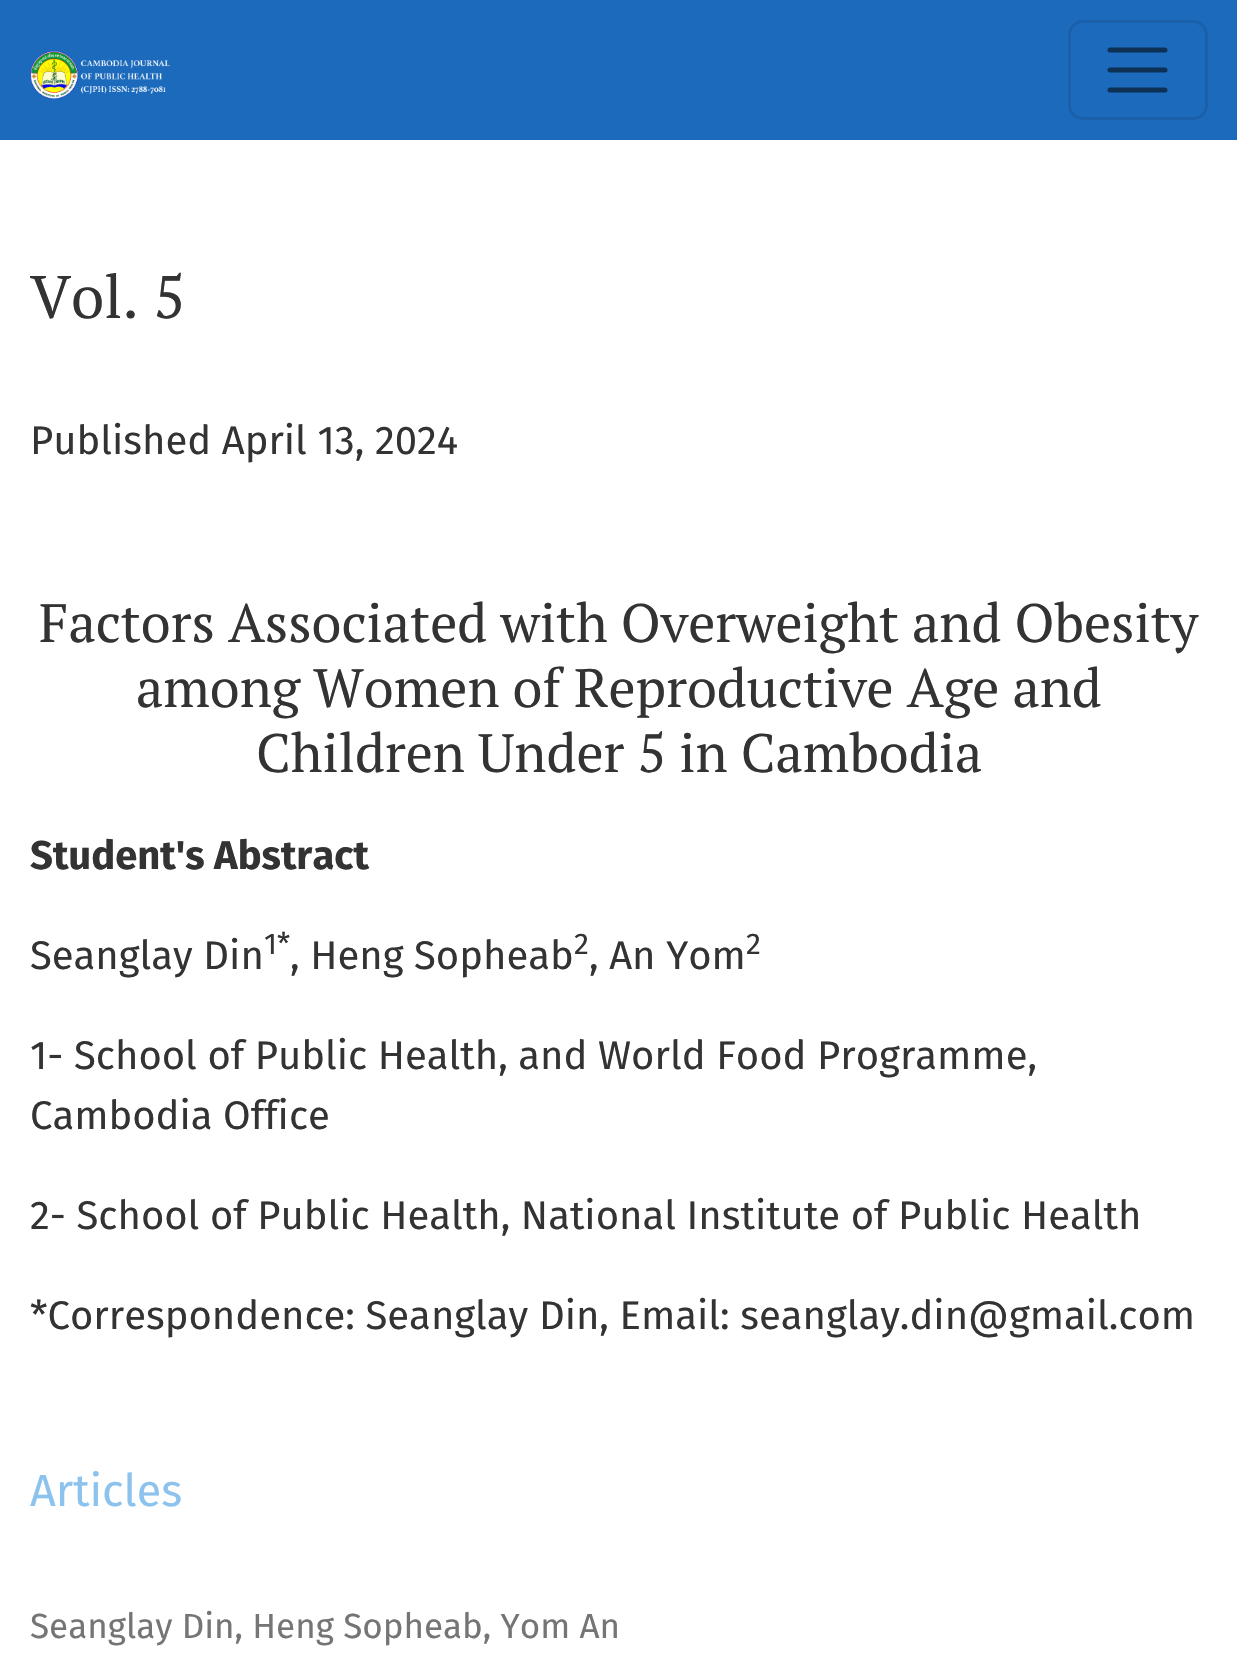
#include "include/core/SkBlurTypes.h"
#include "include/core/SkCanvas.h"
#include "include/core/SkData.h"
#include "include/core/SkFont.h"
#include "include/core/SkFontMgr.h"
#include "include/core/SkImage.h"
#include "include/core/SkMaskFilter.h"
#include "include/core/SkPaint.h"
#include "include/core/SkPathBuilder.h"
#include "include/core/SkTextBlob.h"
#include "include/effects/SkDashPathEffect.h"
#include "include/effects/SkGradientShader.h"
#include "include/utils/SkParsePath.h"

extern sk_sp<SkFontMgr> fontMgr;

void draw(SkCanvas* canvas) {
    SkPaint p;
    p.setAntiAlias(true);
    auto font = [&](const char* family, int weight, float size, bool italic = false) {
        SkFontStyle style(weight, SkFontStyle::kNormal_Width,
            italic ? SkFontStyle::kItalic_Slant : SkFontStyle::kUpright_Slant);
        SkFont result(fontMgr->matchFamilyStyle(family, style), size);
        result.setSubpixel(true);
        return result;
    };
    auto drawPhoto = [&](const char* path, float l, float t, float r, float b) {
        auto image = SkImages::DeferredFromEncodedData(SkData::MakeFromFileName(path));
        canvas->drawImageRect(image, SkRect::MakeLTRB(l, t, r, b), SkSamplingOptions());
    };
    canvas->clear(0xFFFFFFFF);
    p.setColor(0xFF1C6ABC);
    canvas->drawRect(SkRect::MakeLTRB(0, 0, 1237, 140), p);
    drawPhoto("media/1.png", 30, 50, 170, 100);
    p.setStyle(SkPaint::kStroke_Style);
    p.setStrokeWidth(3);
    p.setColor(0xFF195FA9);
    canvas->drawRoundRect(SkRect::MakeLTRB(1069.5f, 21.5f, 1206.5f, 118.5f), 13.5f, 13.5f, p);
    p.setStrokeWidth(5);
    p.setStrokeCap(SkPaint::kRound_Cap);
    p.setColor(0xFF0D3055);
    canvas->drawPath(SkPathBuilder().moveTo(1110, 50).lineTo(1165, 50).moveTo(1110, 70).lineTo(1165, 70).moveTo(1110, 90).lineTo(1165, 90).detach(), p);
    auto font1 = font("PT Serif", 400, 60);
    p.setStyle(SkPaint::kFill_Style);
    p.setColor(0xFF333333);
    canvas->drawString("Vol. 5", 30, 318, font1, p);
    auto font2 = font("Fira Sans", 400, 40);
    canvas->drawString("Published April 13, 2024", 30, 454, font2, p);
    auto font3 = font("PT Serif", 400, 54);
    {
        const struct { const char* s; float x, y; } items[] = {
            {"Factors Associated with Overweight and Obesity", 39, 642},
            {"among Women of Reproductive Age and", 136, 707},
            {"Children Under 5 in Cambodia", 256, 772},
        };
        for (auto [s, x, y] : items) {
            canvas->drawString(s, x, y, font3, p);
        }
    }
    auto font4 = font("Fira Sans", 700, 40);
    canvas->drawString("Student's Abstract", 30, 869, font4, p);
    canvas->drawString("Seanglay Din", 30, 969, font2, p);
    auto font5 = font("Fira Sans", 400, 30);
    canvas->drawString("1*", 264, 954, font5, p);
    canvas->drawString(", Heng Sopheab", 290, 969, font2, p);
    canvas->drawString("2", 574, 954, font5, p);
    canvas->drawString(", An Yom", 589, 969, font2, p);
    canvas->drawString("2", 746, 954, font5, p);
    {
        const struct { const char* s; float x, y; } items[] = {
            {"1- School of Public Health, and World Food Programme,", 30, 1069},
            {"Cambodia Office", 30, 1129},
            {"2- School of Public Health, National Institute of Public Health", 30, 1229},
            {"*Correspondence: Seanglay Din, Email: seanglay.din@gmail.com", 30, 1329},
        };
        for (auto [s, x, y] : items) {
            canvas->drawString(s, x, y, font2, p);
        }
    }
    auto font6 = font("Fira Sans", 400, 45);
    p.setColor(0xFF8CC3EE);
    canvas->drawString("Articles", 30, 1506, font6, p);
    auto font7 = font("Fira Sans", 400, 35);
    p.setColor(0xFF757575);
    canvas->drawString("Seanglay Din, Heng Sopheab, Yom An", 30, 1638, font7, p);
}
